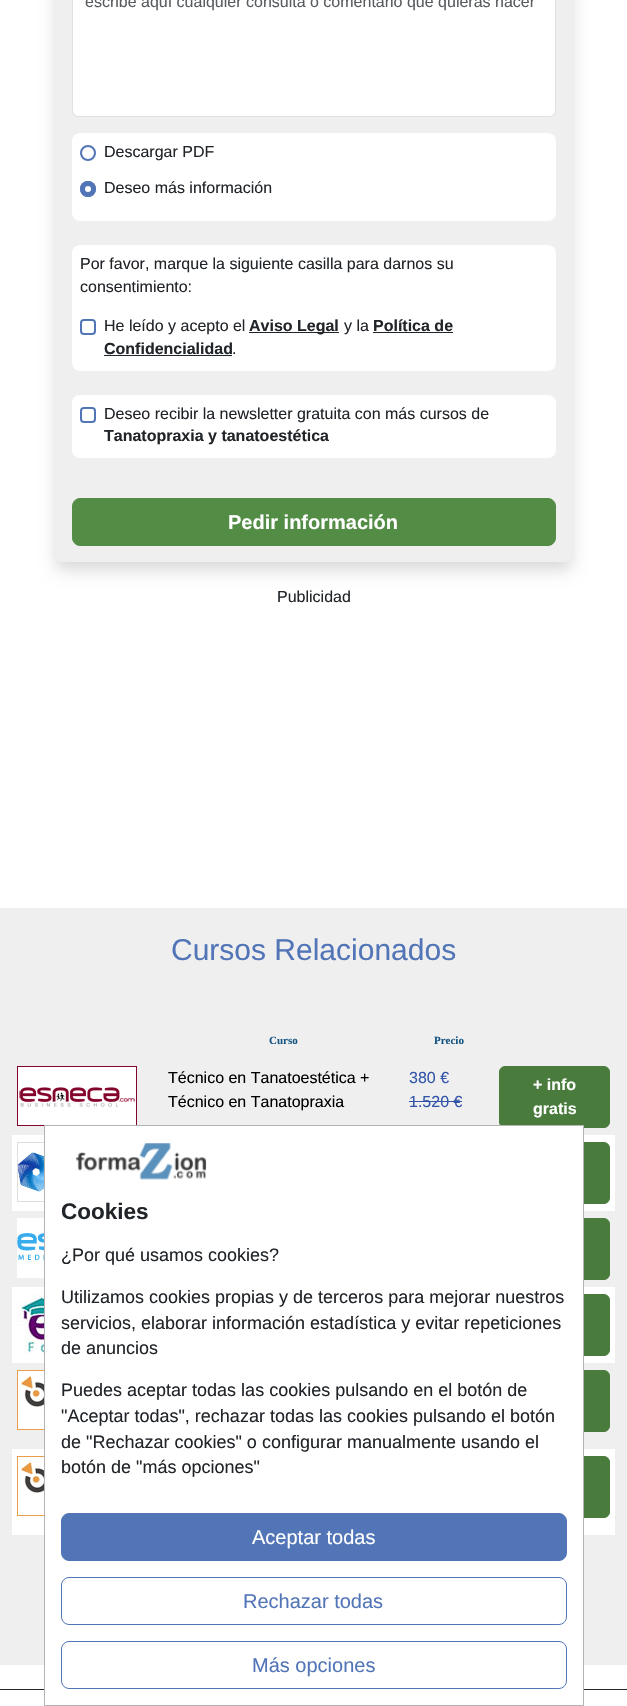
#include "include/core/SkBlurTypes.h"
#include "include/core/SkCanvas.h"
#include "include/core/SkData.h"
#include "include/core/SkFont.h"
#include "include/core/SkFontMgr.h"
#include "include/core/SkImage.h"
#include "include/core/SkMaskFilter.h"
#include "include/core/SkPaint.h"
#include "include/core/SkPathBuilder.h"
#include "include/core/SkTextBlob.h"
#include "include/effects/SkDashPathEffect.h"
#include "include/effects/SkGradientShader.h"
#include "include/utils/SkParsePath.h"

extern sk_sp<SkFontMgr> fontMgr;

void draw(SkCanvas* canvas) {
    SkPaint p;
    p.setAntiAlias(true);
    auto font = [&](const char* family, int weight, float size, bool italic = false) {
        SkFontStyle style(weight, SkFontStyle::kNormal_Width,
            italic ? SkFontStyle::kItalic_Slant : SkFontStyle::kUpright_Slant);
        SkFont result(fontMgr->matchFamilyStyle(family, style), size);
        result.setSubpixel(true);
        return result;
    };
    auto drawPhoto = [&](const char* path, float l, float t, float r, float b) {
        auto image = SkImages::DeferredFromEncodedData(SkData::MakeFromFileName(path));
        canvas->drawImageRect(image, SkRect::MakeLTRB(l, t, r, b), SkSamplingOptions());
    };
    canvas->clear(0xFFFFFFFF);
    p.setColor(0x26000000);
    p.setMaskFilter(SkMaskFilter::MakeBlur(kNormal_SkBlurStyle, 8));
    canvas->drawRoundRect(SkRect::MakeLTRB(56, -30, 572, 570), 6, 6, p);
    p.setMaskFilter(nullptr);
    p.setColor(0xFFEFEFEF);
    canvas->drawRoundRect(SkRect::MakeLTRB(56, -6, 572, 562), 6, 6, p);
    p.setColor(0xFFFFFFFF);
    canvas->drawRoundRect(SkRect::MakeLTRB(73, -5, 555, 116), 5, 5, p);
    p.setStyle(SkPaint::kStroke_Style);
    p.setStrokeWidth(1);
    p.setColor(0xFFDEE2E6);
    canvas->drawRoundRect(SkRect::MakeLTRB(72.5f, -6.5f, 555.5f, 116.5f), 5.5f, 5.5f, p);
    auto font1 = font("Liberation Sans", 400, 16);
    p.setStyle(SkPaint::kFill_Style);
    p.setColor(0xFF595C5F);
    canvas->drawString("escribe aquí cualquier consulta o comentario que quieras hacer", 85, 7, font1, p);
    p.setColor(0xFFFFFFFF);
    canvas->drawRoundRect(SkRect::MakeLTRB(72, 133, 556, 221), 8, 8, p);
    p.setStyle(SkPaint::kStroke_Style);
    p.setStrokeWidth(2);
    p.setColor(0xFF5275B7);
    canvas->drawCircle(88, 153, 7, p);
    p.setStyle(SkPaint::kFill_Style);
    p.setColor(0xFF212529);
    canvas->drawString("Descargar PDF", 104, 157, font1, p);
    p.setColor(0xFF5275B7);
    canvas->drawCircle(88, 189, 8, p);
    p.setColor(0xFFFFFFFF);
    canvas->drawCircle(88, 189, 3, p);
    p.setStyle(SkPaint::kStroke_Style);
    p.setColor(0xFF5275B7);
    canvas->drawCircle(88, 189, 7, p);
    p.setStyle(SkPaint::kFill_Style);
    p.setColor(0xFF212529);
    canvas->drawString("Deseo más información", 104, 193, font1, p);
    p.setColor(0xFFFFFFFF);
    canvas->drawRoundRect(SkRect::MakeLTRB(72, 245, 556, 371), 8, 8, p);
    p.setColor(0xFF212529);
    canvas->drawString("Por favor, marque la siguiente casilla para darnos su", 80, 269, font1, p);
    canvas->drawString("consentimiento:", 80, 292, font1, p);
    p.setStyle(SkPaint::kStroke_Style);
    p.setColor(0xFF5275B7);
    canvas->drawRoundRect(SkRect::MakeLTRB(81, 320, 95, 334), 3, 3, p);
    p.setStyle(SkPaint::kFill_Style);
    p.setColor(0xFF212529);
    canvas->drawString("He leído y acepto el", 104, 331, font1, p);
    canvas->drawRect(SkRect::MakeLTRB(249, 332, 339, 333), p);
    auto font2 = font("Liberation Sans", 700, 16);
    canvas->drawString("Aviso Legal", 249, 331, font2, p);
    canvas->drawString("y la", 344, 331, font1, p);
    canvas->drawString("Política de", 373, 331, font2, p);
    canvas->drawRect(SkRect::MakeLTRB(373, 332, 453, 333), p);
    canvas->drawString("Confidencialidad", 104, 354, font2, p);
    canvas->drawRect(SkRect::MakeLTRB(104, 355, 232, 356), p);
    canvas->drawString(".", 232, 354, font1, p);
    p.setColor(0xFFFFFFFF);
    canvas->drawRoundRect(SkRect::MakeLTRB(72, 395, 556, 458), 8, 8, p);
    p.setStyle(SkPaint::kStroke_Style);
    p.setColor(0xFF5275B7);
    canvas->drawRoundRect(SkRect::MakeLTRB(81, 408, 95, 422), 3, 3, p);
    p.setStyle(SkPaint::kFill_Style);
    p.setColor(0xFF212529);
    canvas->drawString("Deseo recibir la newsletter gratuita con más cursos de", 104, 419, font1, p);
    canvas->drawString("Tanatopraxia y tanatoestética", 104, 441, font2, p);
    p.setColor(0xFF538C44);
    canvas->drawRoundRect(SkRect::MakeLTRB(72.5f, 498.5f, 555.5f, 545.5f), 7.5f, 7.5f, p);
    p.setStyle(SkPaint::kStroke_Style);
    p.setStrokeWidth(1);
    canvas->drawRoundRect(SkRect::MakeLTRB(72.5f, 498.5f, 555.5f, 545.5f), 7.5f, 7.5f, p);
    auto font3 = font("Liberation Sans", 700, 20);
    p.setStyle(SkPaint::kFill_Style);
    p.setColor(0xFFFFFFFF);
    canvas->drawString("Pedir información", 228, 529, font3, p);
    p.setColor(0xFF212529);
    canvas->drawString("Publicidad", 277, 602, font1, p);
    p.setColor(0xFFEFEFEF);
    canvas->drawRect(SkRect::MakeLTRB(0, 908, 627, 1665), p);
    auto font4 = font("Liberation Sans", 400, 30);
    p.setColor(0xFF5275B7);
    canvas->drawString("Cursos Relacionados", 171, 960, font4, p);
    auto font5 = font("Liberation Serif", 700, 11);
    p.setColor(0xFF145483);
    canvas->drawString("Curso", 269, 1044, font5, p);
    canvas->drawString("Precio", 434, 1044, font5, p);
    drawPhoto("media/1.png", 17, 1066, 137, 1126);
    p.setColor(0xFF000000);
    canvas->drawString("Técnico en Tanatoestética +", 168, 1083, font1, p);
    canvas->drawString("Técnico en Tanatopraxia", 168, 1107, font1, p);
    p.setColor(0xFF3255A8);
    canvas->drawString("380 €", 409, 1083, font1, p);
    canvas->drawString("1.520 €", 409, 1107, font1, p);
    canvas->drawRect(SkRect::MakeLTRB(409, 1101, 462, 1102), p);
    p.setColor(0xFF487B3C);
    canvas->drawRoundRect(SkRect::MakeLTRB(499.5f, 1066.5f, 609.5f, 1127.5f), 5.5f, 5.5f, p);
    p.setStyle(SkPaint::kStroke_Style);
    canvas->drawRoundRect(SkRect::MakeLTRB(499.5f, 1066.5f, 609.5f, 1127.5f), 5.5f, 5.5f, p);
    p.setStyle(SkPaint::kFill_Style);
    p.setColor(0xFFFFFFFF);
    canvas->drawString("+ info", 533, 1090, font2, p);
    canvas->drawString("gratis", 533, 1114, font2, p);
    canvas->drawRect(SkRect::MakeLTRB(12, 1135, 615, 1211), p);
    drawPhoto("media/2.png", 17, 1142, 44, 1202);
    p.setColor(0xFF487B3C);
    canvas->drawRoundRect(SkRect::MakeLTRB(499.5f, 1142.5f, 609.5f, 1203.5f), 5.5f, 5.5f, p);
    p.setStyle(SkPaint::kStroke_Style);
    canvas->drawRoundRect(SkRect::MakeLTRB(499.5f, 1142.5f, 609.5f, 1203.5f), 5.5f, 5.5f, p);
    drawPhoto("media/3.png", 17, 1218, 44, 1278);
    p.setStyle(SkPaint::kFill_Style);
    canvas->drawRoundRect(SkRect::MakeLTRB(499.5f, 1218.5f, 609.5f, 1279.5f), 5.5f, 5.5f, p);
    p.setStyle(SkPaint::kStroke_Style);
    canvas->drawRoundRect(SkRect::MakeLTRB(499.5f, 1218.5f, 609.5f, 1279.5f), 5.5f, 5.5f, p);
    p.setStyle(SkPaint::kFill_Style);
    p.setColor(0xFFFFFFFF);
    canvas->drawRect(SkRect::MakeLTRB(12, 1287, 615, 1363), p);
    drawPhoto("media/4.png", 17, 1294, 44, 1354);
    p.setColor(0xFF487B3C);
    canvas->drawRoundRect(SkRect::MakeLTRB(499.5f, 1294.5f, 609.5f, 1355.5f), 5.5f, 5.5f, p);
    p.setStyle(SkPaint::kStroke_Style);
    canvas->drawRoundRect(SkRect::MakeLTRB(499.5f, 1294.5f, 609.5f, 1355.5f), 5.5f, 5.5f, p);
    drawPhoto("media/5.png", 17, 1370, 44, 1430);
    p.setStyle(SkPaint::kFill_Style);
    canvas->drawRoundRect(SkRect::MakeLTRB(499.5f, 1370.5f, 609.5f, 1431.5f), 5.5f, 5.5f, p);
    p.setStyle(SkPaint::kStroke_Style);
    canvas->drawRoundRect(SkRect::MakeLTRB(499.5f, 1370.5f, 609.5f, 1431.5f), 5.5f, 5.5f, p);
    p.setStyle(SkPaint::kFill_Style);
    p.setColor(0xFFFFFFFF);
    canvas->drawRect(SkRect::MakeLTRB(12, 1449, 615, 1535), p);
    drawPhoto("media/5.png", 17, 1456, 44, 1516);
    p.setColor(0xFF487B3C);
    canvas->drawRoundRect(SkRect::MakeLTRB(499.5f, 1456.5f, 609.5f, 1517.5f), 5.5f, 5.5f, p);
    p.setStyle(SkPaint::kStroke_Style);
    canvas->drawRoundRect(SkRect::MakeLTRB(499.5f, 1456.5f, 609.5f, 1517.5f), 5.5f, 5.5f, p);
    p.setStyle(SkPaint::kFill_Style);
    p.setColor(0xFF212529);
    canvas->drawRect(SkRect::MakeLTRB(0, 1689, 627, 1690), p);
    p.setColor(0xFFFFFFFF);
    canvas->drawRect(SkRect::MakeLTRB(45, 1126, 583, 1690), p);
    p.setStyle(SkPaint::kStroke_Style);
    p.setColor(0xFFB3B3B3);
    canvas->drawRect(SkRect::MakeLTRB(44.5f, 1125.5f, 583.5f, 1705.5f), p);
    drawPhoto("media/6.png", 75, 1143, 207, 1180);
    auto font6 = font("Liberation Sans", 700, 22.5f);
    p.setStyle(SkPaint::kFill_Style);
    p.setColor(0xFF212529);
    canvas->drawString("Cookies", 61, 1219, font6, p);
    auto font7 = font("Liberation Sans", 400, 18);
    {
        const struct { const char* s; float x, y; } items[] = {
            {"¿Por qué usamos cookies?", 61, 1261},
            {"Utilizamos cookies propias y de terceros para mejorar nuestros", 61, 1303},
            {"servicios, elaborar información estadística y evitar repeticiones", 61, 1329},
            {"de anuncios", 61, 1354},
            {"Puedes aceptar todas las cookies pulsando en el botón de", 61, 1396},
            {"\"Aceptar todas\", rechazar todas las cookies pulsando el botón", 61, 1422},
            {"de \"Rechazar cookies\" o configurar manualmente usando el", 61, 1448},
            {"botón de \"más opciones\"", 61, 1473},
        };
        for (auto [s, x, y] : items) {
            canvas->drawString(s, x, y, font7, p);
        }
    }
    p.setColor(0xFF5275B7);
    canvas->drawRoundRect(SkRect::MakeLTRB(61.5f, 1513.5f, 566.5f, 1560.5f), 7.5f, 7.5f, p);
    p.setStyle(SkPaint::kStroke_Style);
    canvas->drawRoundRect(SkRect::MakeLTRB(61.5f, 1513.5f, 566.5f, 1560.5f), 7.5f, 7.5f, p);
    auto font8 = font("Liberation Sans", 400, 20);
    p.setStyle(SkPaint::kFill_Style);
    p.setColor(0xFFFFFFFF);
    canvas->drawString("Aceptar todas", 252, 1544, font8, p);
    p.setStyle(SkPaint::kStroke_Style);
    p.setColor(0xFF5275B7);
    canvas->drawRoundRect(SkRect::MakeLTRB(61.5f, 1577.5f, 566.5f, 1624.5f), 7.5f, 7.5f, p);
    p.setStyle(SkPaint::kFill_Style);
    canvas->drawString("Rechazar todas", 243, 1608, font8, p);
    p.setStyle(SkPaint::kStroke_Style);
    canvas->drawRoundRect(SkRect::MakeLTRB(61.5f, 1641.5f, 566.5f, 1688.5f), 7.5f, 7.5f, p);
    p.setStyle(SkPaint::kFill_Style);
    canvas->drawString("Más opciones", 252, 1672, font8, p);
}
